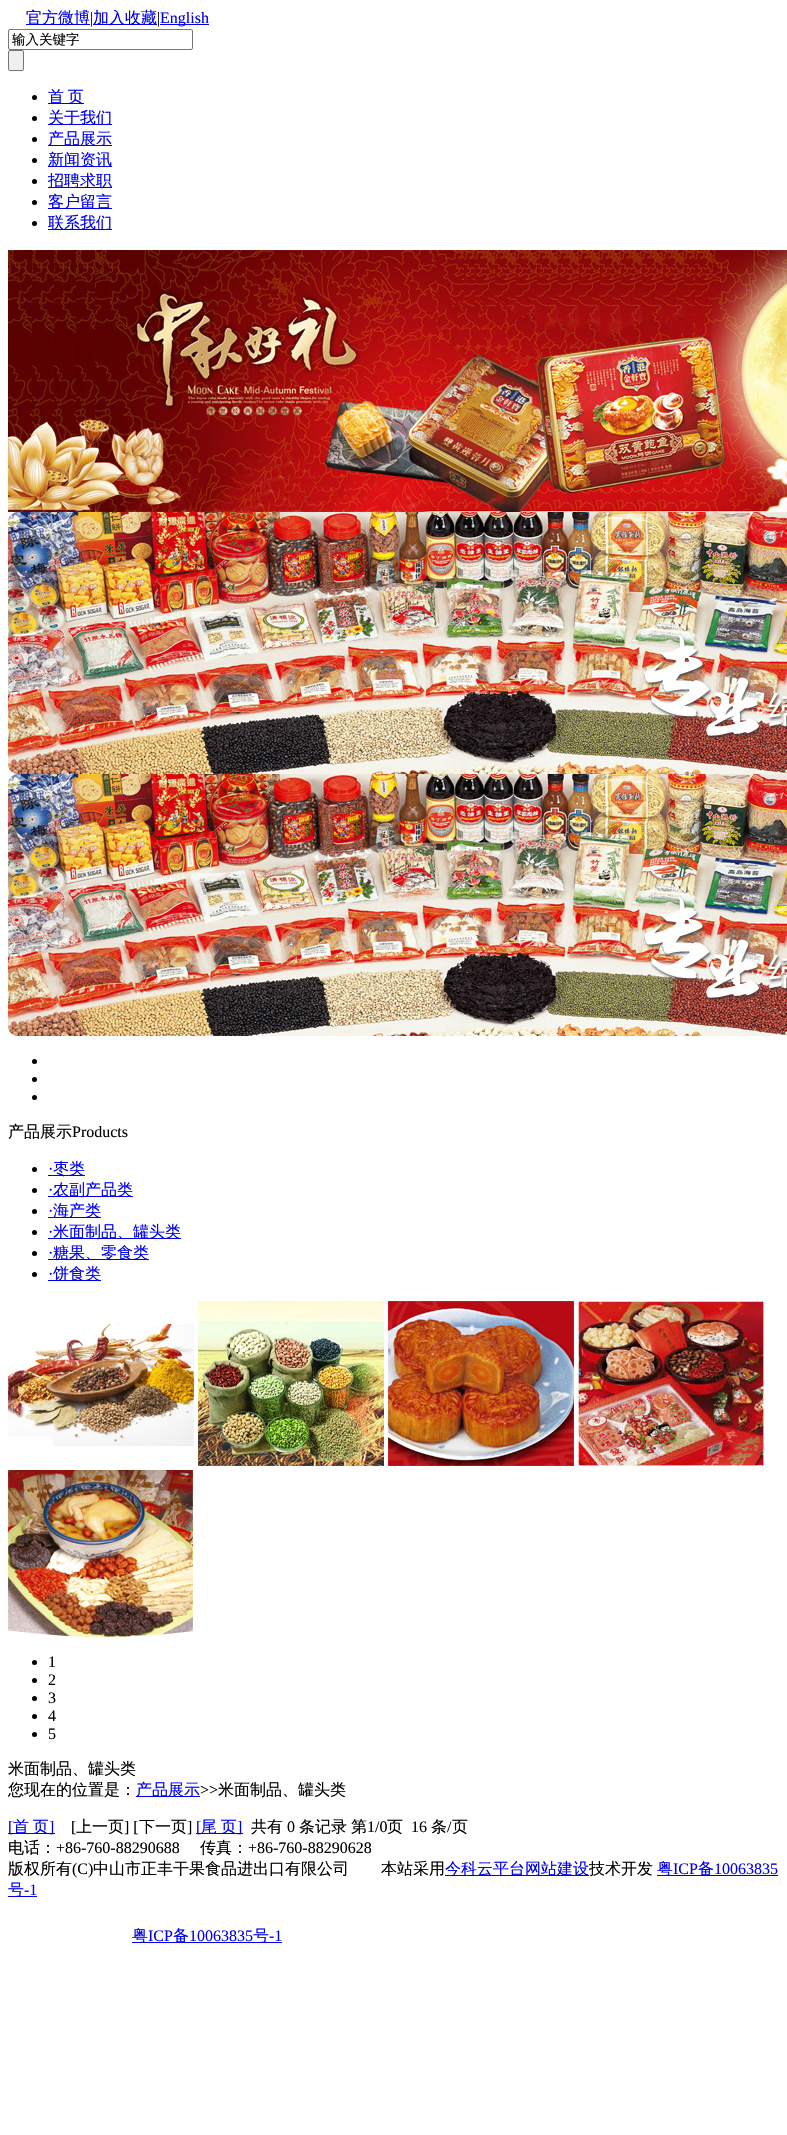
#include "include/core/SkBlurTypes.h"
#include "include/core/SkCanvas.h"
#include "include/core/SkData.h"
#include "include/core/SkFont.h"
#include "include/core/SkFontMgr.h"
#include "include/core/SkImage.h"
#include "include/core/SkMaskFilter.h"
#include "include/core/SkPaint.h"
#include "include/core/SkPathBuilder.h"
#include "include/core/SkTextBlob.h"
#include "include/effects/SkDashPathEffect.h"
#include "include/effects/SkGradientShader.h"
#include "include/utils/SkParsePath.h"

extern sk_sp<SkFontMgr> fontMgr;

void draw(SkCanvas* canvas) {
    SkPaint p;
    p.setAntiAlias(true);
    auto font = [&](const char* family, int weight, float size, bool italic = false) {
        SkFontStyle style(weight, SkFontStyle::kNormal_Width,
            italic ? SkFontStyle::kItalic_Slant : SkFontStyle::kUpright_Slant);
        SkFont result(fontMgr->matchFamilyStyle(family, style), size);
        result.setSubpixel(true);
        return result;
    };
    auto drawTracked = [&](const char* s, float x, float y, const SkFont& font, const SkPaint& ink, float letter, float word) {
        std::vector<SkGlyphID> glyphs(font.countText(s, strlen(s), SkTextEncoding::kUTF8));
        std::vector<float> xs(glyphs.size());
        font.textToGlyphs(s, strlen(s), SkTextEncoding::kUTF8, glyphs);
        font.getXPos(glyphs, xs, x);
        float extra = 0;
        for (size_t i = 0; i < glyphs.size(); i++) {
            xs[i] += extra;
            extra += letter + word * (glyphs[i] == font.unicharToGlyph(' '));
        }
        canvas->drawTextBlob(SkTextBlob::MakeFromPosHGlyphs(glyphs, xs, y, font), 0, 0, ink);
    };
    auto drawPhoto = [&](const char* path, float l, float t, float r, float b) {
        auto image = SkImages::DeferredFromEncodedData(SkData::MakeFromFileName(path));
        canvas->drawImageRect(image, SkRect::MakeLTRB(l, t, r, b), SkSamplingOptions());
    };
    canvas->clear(0xFFFFFFFF);
    p.setColor(0xFF0000EE);
    canvas->drawRect(SkRect::MakeLTRB(26, 24, 90, 25), p);
    auto font1 = font("WenQuanYi Zen Hei", 500, 16);
    canvas->drawString("官方微博", 26, 23, font1, p);
    auto font2 = font("Liberation Serif", 400, 16);
    p.setColor(0xFF000000);
    canvas->drawString("|", 90, 23, font2, p);
    p.setColor(0xFF0000EE);
    canvas->drawRect(SkRect::MakeLTRB(93, 24, 157, 25), p);
    canvas->drawString("加入收藏", 93, 23, font1, p);
    p.setColor(0xFF000000);
    canvas->drawString("|", 157, 23, font2, p);
    p.setColor(0xFF0000EE);
    canvas->drawRect(SkRect::MakeLTRB(160, 24, 209, 25), p);
    canvas->drawString("English", 160, 23, font2, p);
    p.setStyle(SkPaint::kStroke_Style);
    p.setStrokeWidth(1);
    p.setColor(0xFF767676);
    canvas->drawRoundRect(SkRect::MakeLTRB(8.5f, 29.5f, 192.5f, 49.5f), 1.5f, 1.5f, p);
    auto font3 = font("WenQuanYi Zen Hei", 500, 13.5f);
    p.setStyle(SkPaint::kFill_Style);
    p.setColor(0xFF000000);
    canvas->drawString("输入关键字", 12, 44, font3, p);
    p.setColor(0xFFEFEFEF);
    canvas->drawRoundRect(SkRect::MakeLTRB(8.5f, 50.5f, 23.5f, 70.5f), 1.5f, 1.5f, p);
    p.setStyle(SkPaint::kStroke_Style);
    p.setColor(0xFF767676);
    canvas->drawRoundRect(SkRect::MakeLTRB(8.5f, 50.5f, 23.5f, 70.5f), 1.5f, 1.5f, p);
    p.setStyle(SkPaint::kFill_Style);
    p.setColor(0xFF000000);
    canvas->drawCircle(34.5f, 97.5f, 2.5f, p);
    p.setColor(0xFF0000EE);
    canvas->drawRect(SkRect::MakeLTRB(48, 103, 84, 104), p);
    drawTracked("首 页", 48, 102, font1, p, 0, -1);
    p.setColor(0xFF000000);
    canvas->drawCircle(34.5f, 118.5f, 2.5f, p);
    p.setColor(0xFF0000EE);
    canvas->drawRect(SkRect::MakeLTRB(48, 124, 112, 125), p);
    canvas->drawString("关于我们", 48, 123, font1, p);
    p.setColor(0xFF000000);
    canvas->drawCircle(34.5f, 139.5f, 2.5f, p);
    p.setColor(0xFF0000EE);
    canvas->drawRect(SkRect::MakeLTRB(48, 145, 112, 146), p);
    canvas->drawString("产品展示", 48, 144, font1, p);
    p.setColor(0xFF000000);
    canvas->drawCircle(34.5f, 160.5f, 2.5f, p);
    p.setColor(0xFF0000EE);
    canvas->drawRect(SkRect::MakeLTRB(48, 166, 112, 167), p);
    canvas->drawString("新闻资讯", 48, 165, font1, p);
    p.setColor(0xFF000000);
    canvas->drawCircle(34.5f, 181.5f, 2.5f, p);
    p.setColor(0xFF0000EE);
    canvas->drawRect(SkRect::MakeLTRB(48, 187, 112, 188), p);
    canvas->drawString("招聘求职", 48, 186, font1, p);
    p.setColor(0xFF000000);
    canvas->drawCircle(34.5f, 202.5f, 2.5f, p);
    p.setColor(0xFF0000EE);
    canvas->drawRect(SkRect::MakeLTRB(48, 208, 112, 209), p);
    canvas->drawString("客户留言", 48, 207, font1, p);
    p.setColor(0xFF000000);
    canvas->drawCircle(34.5f, 223.5f, 2.5f, p);
    p.setColor(0xFF0000EE);
    canvas->drawRect(SkRect::MakeLTRB(48, 229, 112, 230), p);
    canvas->drawString("联系我们", 48, 228, font1, p);
    drawPhoto("media/1.png", 8, 250, 787, 512);
    drawPhoto("media/2.png", 8, 512, 787, 774);
    drawPhoto("media/2.png", 8, 774, 787, 1036);
    p.setColor(0xFF000000);
    canvas->drawCircle(34.5f, 1061.5f, 2.5f, p);
    canvas->drawCircle(34.5f, 1079.5f, 2.5f, p);
    canvas->drawCircle(34.5f, 1097.5f, 2.5f, p);
    canvas->drawString("产品展示", 8, 1137, font1, p);
    canvas->drawString("Products", 72, 1137, font2, p);
    canvas->drawCircle(34.5f, 1169.5f, 2.5f, p);
    p.setColor(0xFF0000EE);
    canvas->drawString("·", 48, 1174, font2, p);
    canvas->drawRect(SkRect::MakeLTRB(48, 1175, 85, 1176), p);
    canvas->drawString("枣类", 53, 1174, font1, p);
    p.setColor(0xFF000000);
    canvas->drawCircle(34.5f, 1190.5f, 2.5f, p);
    p.setColor(0xFF0000EE);
    canvas->drawString("·", 48, 1195, font2, p);
    canvas->drawRect(SkRect::MakeLTRB(48, 1196, 133, 1197), p);
    canvas->drawString("农副产品类", 53, 1195, font1, p);
    p.setColor(0xFF000000);
    canvas->drawCircle(34.5f, 1211.5f, 2.5f, p);
    p.setColor(0xFF0000EE);
    canvas->drawString("·", 48, 1216, font2, p);
    canvas->drawRect(SkRect::MakeLTRB(48, 1217, 101, 1218), p);
    canvas->drawString("海产类", 53, 1216, font1, p);
    p.setColor(0xFF000000);
    canvas->drawCircle(34.5f, 1232.5f, 2.5f, p);
    p.setColor(0xFF0000EE);
    canvas->drawString("·", 48, 1237, font2, p);
    canvas->drawRect(SkRect::MakeLTRB(48, 1238, 181, 1239), p);
    canvas->drawString("米面制品、罐头类", 53, 1237, font1, p);
    p.setColor(0xFF000000);
    canvas->drawCircle(34.5f, 1253.5f, 2.5f, p);
    p.setColor(0xFF0000EE);
    canvas->drawString("·", 48, 1258, font2, p);
    canvas->drawRect(SkRect::MakeLTRB(48, 1259, 149, 1260), p);
    canvas->drawString("糖果、零食类", 53, 1258, font1, p);
    p.setColor(0xFF000000);
    canvas->drawCircle(34.5f, 1274.5f, 2.5f, p);
    p.setColor(0xFF0000EE);
    canvas->drawString("·", 48, 1279, font2, p);
    canvas->drawRect(SkRect::MakeLTRB(48, 1280, 101, 1281), p);
    canvas->drawString("饼食类", 53, 1279, font1, p);
    drawPhoto("media/3.png", 8, 1318, 194, 1446);
    drawPhoto("media/4.png", 198, 1301, 384, 1466);
    drawPhoto("media/5.png", 388, 1301, 574, 1466);
    drawPhoto("media/6.png", 578, 1301, 764, 1466);
    drawPhoto("media/7.png", 8, 1470, 193, 1637);
    p.setColor(0xFF000000);
    canvas->drawCircle(34.5f, 1662.5f, 2.5f, p);
    canvas->drawString("1", 48, 1667, font2, p);
    canvas->drawCircle(34.5f, 1680.5f, 2.5f, p);
    canvas->drawString("2", 48, 1685, font2, p);
    canvas->drawCircle(34.5f, 1698.5f, 2.5f, p);
    canvas->drawString("3", 48, 1703, font2, p);
    canvas->drawCircle(34.5f, 1716.5f, 2.5f, p);
    canvas->drawString("4", 48, 1721, font2, p);
    canvas->drawCircle(34.5f, 1734.5f, 2.5f, p);
    canvas->drawString("5", 48, 1739, font2, p);
    canvas->drawString("米面制品、罐头类", 8, 1774, font1, p);
    canvas->drawString("您现在的位置是：", 8, 1795, font1, p);
    p.setColor(0xFF0000EE);
    canvas->drawRect(SkRect::MakeLTRB(136, 1796, 200, 1797), p);
    canvas->drawString("产品展示", 136, 1795, font1, p);
    p.setColor(0xFF000000);
    canvas->drawString(">>", 200, 1795, font2, p);
    canvas->drawString("米面制品、罐头类", 218, 1795, font1, p);
    p.setColor(0xFF0000EE);
    canvas->drawRect(SkRect::MakeLTRB(8, 1833, 55, 1834), p);
    canvas->drawString("[", 8, 1832, font2, p);
    drawTracked("首 页", 13, 1832, font1, p, 0, -1);
    canvas->drawString("]", 49, 1832, font2, p);
    p.setColor(0xFF000000);
    canvas->drawString("[", 71, 1832, font2, p);
    canvas->drawString("上一页", 76, 1832, font1, p);
    canvas->drawString("] [", 124, 1832, font2, p);
    canvas->drawString("下一页", 139, 1832, font1, p);
    canvas->drawString("]", 187, 1832, font2, p);
    p.setColor(0xFF0000EE);
    canvas->drawRect(SkRect::MakeLTRB(196, 1833, 243, 1834), p);
    canvas->drawString("[", 196, 1832, font2, p);
    drawTracked("尾 页", 201, 1832, font1, p, 0, -1);
    canvas->drawString("]", 237, 1832, font2, p);
    p.setColor(0xFF000000);
    canvas->drawString("共有", 251, 1832, font1, p);
    canvas->drawString("0", 287, 1832, font2, p);
    canvas->drawString("条记录", 299, 1832, font1, p);
    canvas->drawString("第", 351, 1832, font1, p);
    canvas->drawString("1/0", 367, 1832, font2, p);
    canvas->drawString("页", 387, 1832, font1, p);
    canvas->drawString("16", 411, 1832, font2, p);
    canvas->drawString("条", 431, 1832, font1, p);
    canvas->drawString("/", 447, 1832, font2, p);
    canvas->drawString("页", 452, 1832, font1, p);
    canvas->drawString("电话：", 8, 1853, font1, p);
    canvas->drawString("+86-760-88290688", 56, 1853, font2, p);
    canvas->drawString("传真：", 200, 1853, font1, p);
    canvas->drawString("+86-760-88290628", 248, 1853, font2, p);
    canvas->drawString("版权所有", 8, 1874, font1, p);
    canvas->drawString("(C)", 72, 1874, font2, p);
    canvas->drawString("中山市正丰干果食品进出口有限公司　　本站采用", 93, 1874, font1, p);
    p.setColor(0xFF0000EE);
    canvas->drawRect(SkRect::MakeLTRB(445, 1875, 589, 1876), p);
    canvas->drawString("今科云平台网站建设", 445, 1874, font1, p);
    p.setColor(0xFF000000);
    canvas->drawString("技术开发", 589, 1874, font1, p);
    p.setColor(0xFF0000EE);
    canvas->drawRect(SkRect::MakeLTRB(657, 1875, 778, 1876), p);
    canvas->drawString("粤", 657, 1874, font1, p);
    canvas->drawString("ICP", 673, 1874, font2, p);
    canvas->drawString("备", 698, 1874, font1, p);
    canvas->drawString("10063835", 714, 1874, font2, p);
    canvas->drawRect(SkRect::MakeLTRB(8, 1896, 37, 1897), p);
    canvas->drawString("号", 8, 1895, font1, p);
    canvas->drawString("-1", 24, 1895, font2, p);
    canvas->drawRect(SkRect::MakeLTRB(132, 1942, 282, 1943), p);
    canvas->drawString("粤", 132, 1941, font1, p);
    canvas->drawString("ICP", 148, 1941, font2, p);
    canvas->drawString("备", 173, 1941, font1, p);
    canvas->drawString("10063835", 189, 1941, font2, p);
    canvas->drawString("号", 253, 1941, font1, p);
    canvas->drawString("-1", 269, 1941, font2, p);
}
